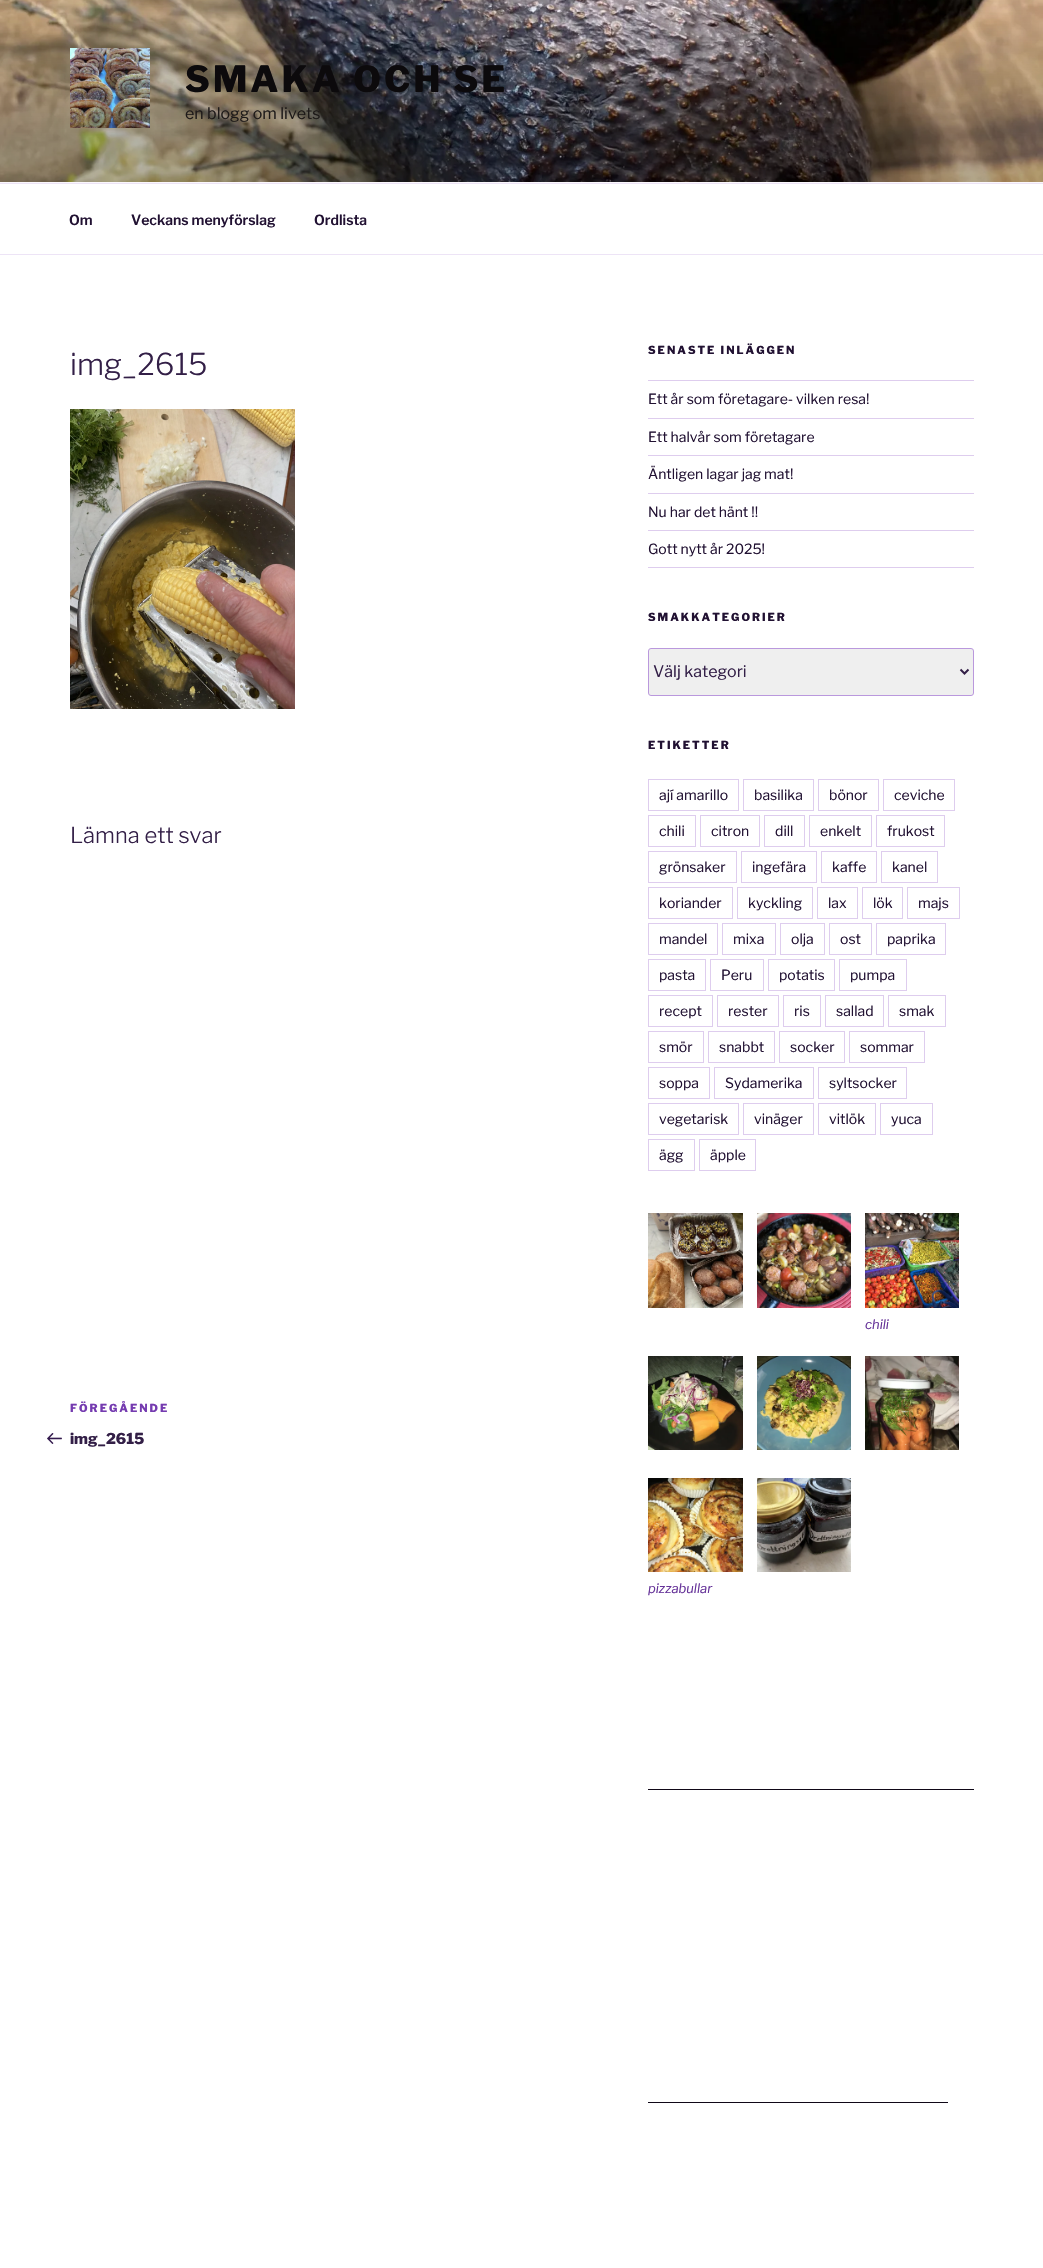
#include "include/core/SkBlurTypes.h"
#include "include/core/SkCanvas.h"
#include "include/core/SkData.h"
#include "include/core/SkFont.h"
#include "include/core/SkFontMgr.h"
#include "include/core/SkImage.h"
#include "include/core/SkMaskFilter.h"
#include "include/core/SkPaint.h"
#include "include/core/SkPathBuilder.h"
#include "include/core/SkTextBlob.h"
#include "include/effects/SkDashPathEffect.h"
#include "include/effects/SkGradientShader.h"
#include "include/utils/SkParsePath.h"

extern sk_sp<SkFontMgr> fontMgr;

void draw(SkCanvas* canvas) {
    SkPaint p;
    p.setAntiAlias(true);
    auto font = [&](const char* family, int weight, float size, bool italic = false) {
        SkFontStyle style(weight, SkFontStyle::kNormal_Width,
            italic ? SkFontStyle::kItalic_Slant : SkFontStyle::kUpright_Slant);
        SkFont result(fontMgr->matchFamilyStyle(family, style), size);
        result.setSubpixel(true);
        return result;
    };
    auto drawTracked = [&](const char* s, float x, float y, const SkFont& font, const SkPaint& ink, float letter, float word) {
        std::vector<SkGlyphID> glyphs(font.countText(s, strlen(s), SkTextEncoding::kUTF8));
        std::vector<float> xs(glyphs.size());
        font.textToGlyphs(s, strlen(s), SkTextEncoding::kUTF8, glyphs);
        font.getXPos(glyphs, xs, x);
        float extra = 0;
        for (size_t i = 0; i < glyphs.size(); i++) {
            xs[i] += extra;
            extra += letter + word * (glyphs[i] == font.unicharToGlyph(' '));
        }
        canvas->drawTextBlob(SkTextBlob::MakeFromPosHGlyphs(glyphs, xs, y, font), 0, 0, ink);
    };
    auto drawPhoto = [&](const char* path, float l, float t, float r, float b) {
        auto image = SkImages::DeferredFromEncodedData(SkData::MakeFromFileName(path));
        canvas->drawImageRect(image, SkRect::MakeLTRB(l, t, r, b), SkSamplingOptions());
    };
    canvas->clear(0xFFFFFFFF);
    p.setColor(0xFFFAF7FC);
    canvas->drawRect(SkRect::MakeLTRB(0, 182, 1043, 183), p);
    drawPhoto("media/1.png", 0, 0, 1043, 182);
    drawPhoto("media/2.png", 70, 48, 150, 128);
    auto font1 = font("Libre Franklin", 800, 36);
    p.setColor(0xFF0C0A0C);
    drawTracked("SMAKA OCH SE", 185, 92, font1, p, 2.9f, 0);
    auto font2 = font("Libre Franklin", 400, 16);
    p.setColor(0xFF1E1A19);
    canvas->drawString("en blogg om livets", 185, 119, font2, p);
    p.setColor(0xFFEDE4F6);
    canvas->drawRect(SkRect::MakeLTRB(0, 183, 1043, 184), p);
    canvas->drawRect(SkRect::MakeLTRB(0, 254, 1043, 255), p);
    auto font3 = font("Libre Franklin", 600, 14);
    p.setColor(0xFF211132);
    {
        const struct { const char* s; float x, y; } items[] = {
            {"Om", 69, 225},
            {"Veckans menyförslag", 131, 225},
            {"Ordlista", 314, 225},
        };
        for (auto [s, x, y] : items) {
            canvas->drawString(s, x, y, font3, p);
        }
    }
    auto font4 = font("Libre Franklin", 300, 30);
    p.setColor(0xFF331F47);
    canvas->drawString("img_2615", 70, 375, font4, p);
    drawPhoto("media/3.png", 70, 409, 295, 709);
    auto font5 = font("Libre Franklin", 300, 22);
    canvas->drawString("Lämna ett svar", 70, 843, font5, p);
    auto font6 = font("Libre Franklin", 800, 11);
    p.setColor(0xFF753BB0);
    drawTracked("FÖREGÅENDE", 70, 1412, font6, p, 2, 0);
    drawPhoto("media/4.png", 47, 1433, 62, 1444);
    auto font7 = font("Libre Franklin", 800, 15);
    p.setColor(0xFF331F47);
    canvas->drawString("img_2615", 70, 1444, font7, p);
    p.setColor(0xFF211132);
    drawTracked("SENASTE INLÄGGEN", 648, 354, font6, p, 2, 0);
    p.setColor(0xFFDECDEE);
    canvas->drawRect(SkRect::MakeLTRB(648, 380, 974, 381), p);
    canvas->drawRect(SkRect::MakeLTRB(648, 418, 974, 419), p);
    auto font8 = font("Libre Franklin", 400, 14);
    p.setColor(0xFF211132);
    canvas->drawString("Ett år som företagare- vilken resa!", 648, 404, font8, p);
    p.setColor(0xFFDECDEE);
    canvas->drawRect(SkRect::MakeLTRB(648, 455, 974, 456), p);
    p.setColor(0xFF211132);
    canvas->drawString("Ett halvår som företagare", 648, 442, font8, p);
    p.setColor(0xFFDECDEE);
    canvas->drawRect(SkRect::MakeLTRB(648, 493, 974, 494), p);
    p.setColor(0xFF211132);
    canvas->drawString("Äntligen lagar jag mat!", 648, 479, font8, p);
    p.setColor(0xFFDECDEE);
    canvas->drawRect(SkRect::MakeLTRB(648, 530, 974, 531), p);
    p.setColor(0xFF211132);
    canvas->drawString("Nu har det hänt !!", 648, 517, font8, p);
    p.setColor(0xFFDECDEE);
    canvas->drawRect(SkRect::MakeLTRB(648, 567, 974, 568), p);
    p.setColor(0xFF211132);
    canvas->drawString("Gott nytt år 2025!", 648, 554, font8, p);
    drawTracked("SMAKKATEGORIER", 648, 621, font6, p, 2, 0);
    p.setColor(0xFFEFEFEF);
    canvas->drawRoundRect(SkRect::MakeLTRB(648.5f, 648.5f, 973.5f, 695.5f), 2.5f, 2.5f, p);
    p.setStyle(SkPaint::kStroke_Style);
    p.setStrokeWidth(1);
    p.setColor(0xFFBA98DD);
    canvas->drawRoundRect(SkRect::MakeLTRB(648.5f, 648.5f, 973.5f, 695.5f), 2.5f, 2.5f, p);
    p.setStrokeWidth(2);
    p.setColor(0xFF331F47);
    canvas->drawPath(SkPathBuilder().moveTo(960.5f, 669.5f).lineTo(964.5f, 673.5f).lineTo(968.5f, 669.5f).detach(), p);
    p.setStyle(SkPaint::kFill_Style);
    canvas->drawString("Välj kategori", 653, 677, font2, p);
    p.setColor(0xFF211132);
    drawTracked("ETIKETTER", 648, 749, font6, p, 2, 0);
    p.setStyle(SkPaint::kStroke_Style);
    p.setStrokeWidth(1);
    p.setColor(0xFFDECDEE);
    canvas->drawRect(SkRect::MakeLTRB(648.5f, 779.5f, 738.5f, 810.5f), p);
    p.setStyle(SkPaint::kFill_Style);
    p.setColor(0xFF211132);
    canvas->drawString("ají amarillo", 659, 800, font8, p);
    p.setStyle(SkPaint::kStroke_Style);
    p.setColor(0xFFDECDEE);
    canvas->drawRect(SkRect::MakeLTRB(743.5f, 779.5f, 813.5f, 810.5f), p);
    p.setStyle(SkPaint::kFill_Style);
    p.setColor(0xFF211132);
    canvas->drawString("basilika", 754, 800, font8, p);
    p.setStyle(SkPaint::kStroke_Style);
    p.setColor(0xFFDECDEE);
    canvas->drawRect(SkRect::MakeLTRB(818.5f, 779.5f, 878.5f, 810.5f), p);
    p.setStyle(SkPaint::kFill_Style);
    p.setColor(0xFF211132);
    canvas->drawString("bönor", 829, 800, font8, p);
    p.setStyle(SkPaint::kStroke_Style);
    p.setColor(0xFFDECDEE);
    canvas->drawRect(SkRect::MakeLTRB(883.5f, 779.5f, 954.5f, 810.5f), p);
    p.setStyle(SkPaint::kFill_Style);
    p.setColor(0xFF211132);
    canvas->drawString("ceviche", 894, 800, font8, p);
    p.setStyle(SkPaint::kStroke_Style);
    p.setColor(0xFFDECDEE);
    canvas->drawRect(SkRect::MakeLTRB(648.5f, 815.5f, 695.5f, 846.5f), p);
    p.setStyle(SkPaint::kFill_Style);
    p.setColor(0xFF211132);
    canvas->drawString("chili", 659, 836, font8, p);
    p.setStyle(SkPaint::kStroke_Style);
    p.setColor(0xFFDECDEE);
    canvas->drawRect(SkRect::MakeLTRB(700.5f, 815.5f, 759.5f, 846.5f), p);
    p.setStyle(SkPaint::kFill_Style);
    p.setColor(0xFF211132);
    canvas->drawString("citron", 711, 836, font8, p);
    p.setStyle(SkPaint::kStroke_Style);
    p.setColor(0xFFDECDEE);
    canvas->drawRect(SkRect::MakeLTRB(764.5f, 815.5f, 804.5f, 846.5f), p);
    p.setStyle(SkPaint::kFill_Style);
    p.setColor(0xFF211132);
    canvas->drawString("dill", 775, 836, font8, p);
    p.setStyle(SkPaint::kStroke_Style);
    p.setColor(0xFFDECDEE);
    canvas->drawRect(SkRect::MakeLTRB(809.5f, 815.5f, 871.5f, 846.5f), p);
    p.setStyle(SkPaint::kFill_Style);
    p.setColor(0xFF211132);
    canvas->drawString("enkelt", 820, 836, font8, p);
    p.setStyle(SkPaint::kStroke_Style);
    p.setColor(0xFFDECDEE);
    canvas->drawRect(SkRect::MakeLTRB(876.5f, 815.5f, 944.5f, 846.5f), p);
    p.setStyle(SkPaint::kFill_Style);
    p.setColor(0xFF211132);
    canvas->drawString("frukost", 887, 836, font8, p);
    p.setStyle(SkPaint::kStroke_Style);
    p.setColor(0xFFDECDEE);
    canvas->drawRect(SkRect::MakeLTRB(648.5f, 851.5f, 736.5f, 882.5f), p);
    p.setStyle(SkPaint::kFill_Style);
    p.setColor(0xFF211132);
    canvas->drawString("grönsaker", 659, 872, font8, p);
    p.setStyle(SkPaint::kStroke_Style);
    p.setColor(0xFFDECDEE);
    canvas->drawRect(SkRect::MakeLTRB(741.5f, 851.5f, 816.5f, 882.5f), p);
    p.setStyle(SkPaint::kFill_Style);
    p.setColor(0xFF211132);
    canvas->drawString("ingefära", 752, 872, font8, p);
    p.setStyle(SkPaint::kStroke_Style);
    p.setColor(0xFFDECDEE);
    canvas->drawRect(SkRect::MakeLTRB(821.5f, 851.5f, 876.5f, 882.5f), p);
    p.setStyle(SkPaint::kFill_Style);
    p.setColor(0xFF211132);
    canvas->drawString("kaffe", 832, 872, font8, p);
    p.setStyle(SkPaint::kStroke_Style);
    p.setColor(0xFFDECDEE);
    canvas->drawRect(SkRect::MakeLTRB(881.5f, 851.5f, 937.5f, 882.5f), p);
    p.setStyle(SkPaint::kFill_Style);
    p.setColor(0xFF211132);
    canvas->drawString("kanel", 892, 872, font8, p);
    p.setStyle(SkPaint::kStroke_Style);
    p.setColor(0xFFDECDEE);
    canvas->drawRect(SkRect::MakeLTRB(648.5f, 887.5f, 732.5f, 918.5f), p);
    p.setStyle(SkPaint::kFill_Style);
    p.setColor(0xFF211132);
    canvas->drawString("koriander", 659, 908, font8, p);
    p.setStyle(SkPaint::kStroke_Style);
    p.setColor(0xFFDECDEE);
    canvas->drawRect(SkRect::MakeLTRB(737.5f, 887.5f, 812.5f, 918.5f), p);
    p.setStyle(SkPaint::kFill_Style);
    p.setColor(0xFF211132);
    canvas->drawString("kyckling", 748, 908, font8, p);
    p.setStyle(SkPaint::kStroke_Style);
    p.setColor(0xFFDECDEE);
    canvas->drawRect(SkRect::MakeLTRB(817.5f, 887.5f, 857.5f, 918.5f), p);
    p.setStyle(SkPaint::kFill_Style);
    p.setColor(0xFF211132);
    canvas->drawString("lax", 828, 908, font8, p);
    p.setStyle(SkPaint::kStroke_Style);
    p.setColor(0xFFDECDEE);
    canvas->drawRect(SkRect::MakeLTRB(862.5f, 887.5f, 902.5f, 918.5f), p);
    p.setStyle(SkPaint::kFill_Style);
    p.setColor(0xFF211132);
    canvas->drawString("lök", 873, 908, font8, p);
    p.setStyle(SkPaint::kStroke_Style);
    p.setColor(0xFFDECDEE);
    canvas->drawRect(SkRect::MakeLTRB(907.5f, 887.5f, 959.5f, 918.5f), p);
    p.setStyle(SkPaint::kFill_Style);
    p.setColor(0xFF211132);
    canvas->drawString("majs", 918, 908, font8, p);
    p.setStyle(SkPaint::kStroke_Style);
    p.setColor(0xFFDECDEE);
    canvas->drawRect(SkRect::MakeLTRB(648.5f, 923.5f, 717.5f, 954.5f), p);
    p.setStyle(SkPaint::kFill_Style);
    p.setColor(0xFF211132);
    canvas->drawString("mandel", 659, 944, font8, p);
    p.setStyle(SkPaint::kStroke_Style);
    p.setColor(0xFFDECDEE);
    canvas->drawRect(SkRect::MakeLTRB(722.5f, 923.5f, 775.5f, 954.5f), p);
    p.setStyle(SkPaint::kFill_Style);
    p.setColor(0xFF211132);
    canvas->drawString("mixa", 733, 944, font8, p);
    p.setStyle(SkPaint::kStroke_Style);
    p.setColor(0xFFDECDEE);
    canvas->drawRect(SkRect::MakeLTRB(780.5f, 923.5f, 824.5f, 954.5f), p);
    p.setStyle(SkPaint::kFill_Style);
    p.setColor(0xFF211132);
    canvas->drawString("olja", 791, 944, font8, p);
    p.setStyle(SkPaint::kStroke_Style);
    p.setColor(0xFFDECDEE);
    canvas->drawRect(SkRect::MakeLTRB(829.5f, 923.5f, 871.5f, 954.5f), p);
    p.setStyle(SkPaint::kFill_Style);
    p.setColor(0xFF211132);
    canvas->drawString("ost", 840, 944, font8, p);
    p.setStyle(SkPaint::kStroke_Style);
    p.setColor(0xFFDECDEE);
    canvas->drawRect(SkRect::MakeLTRB(876.5f, 923.5f, 945.5f, 954.5f), p);
    p.setStyle(SkPaint::kFill_Style);
    p.setColor(0xFF211132);
    canvas->drawString("paprika", 887, 944, font8, p);
    p.setStyle(SkPaint::kStroke_Style);
    p.setColor(0xFFDECDEE);
    canvas->drawRect(SkRect::MakeLTRB(648.5f, 959.5f, 705.5f, 990.5f), p);
    p.setStyle(SkPaint::kFill_Style);
    p.setColor(0xFF211132);
    canvas->drawString("pasta", 659, 980, font8, p);
    p.setStyle(SkPaint::kStroke_Style);
    p.setColor(0xFFDECDEE);
    canvas->drawRect(SkRect::MakeLTRB(710.5f, 959.5f, 763.5f, 990.5f), p);
    p.setStyle(SkPaint::kFill_Style);
    p.setColor(0xFF211132);
    canvas->drawString("Peru", 721, 980, font8, p);
    p.setStyle(SkPaint::kStroke_Style);
    p.setColor(0xFFDECDEE);
    canvas->drawRect(SkRect::MakeLTRB(768.5f, 959.5f, 834.5f, 990.5f), p);
    p.setStyle(SkPaint::kFill_Style);
    p.setColor(0xFF211132);
    canvas->drawString("potatis", 779, 980, font8, p);
    p.setStyle(SkPaint::kStroke_Style);
    p.setColor(0xFFDECDEE);
    canvas->drawRect(SkRect::MakeLTRB(839.5f, 959.5f, 906.5f, 990.5f), p);
    p.setStyle(SkPaint::kFill_Style);
    p.setColor(0xFF211132);
    canvas->drawString("pumpa", 850, 980, font8, p);
    p.setStyle(SkPaint::kStroke_Style);
    p.setColor(0xFFDECDEE);
    canvas->drawRect(SkRect::MakeLTRB(648.5f, 995.5f, 712.5f, 1026.5f), p);
    p.setStyle(SkPaint::kFill_Style);
    p.setColor(0xFF211132);
    canvas->drawString("recept", 659, 1016, font8, p);
    p.setStyle(SkPaint::kStroke_Style);
    p.setColor(0xFFDECDEE);
    canvas->drawRect(SkRect::MakeLTRB(717.5f, 995.5f, 778.5f, 1026.5f), p);
    p.setStyle(SkPaint::kFill_Style);
    p.setColor(0xFF211132);
    canvas->drawString("rester", 728, 1016, font8, p);
    p.setStyle(SkPaint::kStroke_Style);
    p.setColor(0xFFDECDEE);
    canvas->drawRect(SkRect::MakeLTRB(783.5f, 995.5f, 820.5f, 1026.5f), p);
    p.setStyle(SkPaint::kFill_Style);
    p.setColor(0xFF211132);
    canvas->drawString("ris", 794, 1016, font8, p);
    p.setStyle(SkPaint::kStroke_Style);
    p.setColor(0xFFDECDEE);
    canvas->drawRect(SkRect::MakeLTRB(825.5f, 995.5f, 883.5f, 1026.5f), p);
    p.setStyle(SkPaint::kFill_Style);
    p.setColor(0xFF211132);
    canvas->drawString("sallad", 836, 1016, font8, p);
    p.setStyle(SkPaint::kStroke_Style);
    p.setColor(0xFFDECDEE);
    canvas->drawRect(SkRect::MakeLTRB(888.5f, 995.5f, 945.5f, 1026.5f), p);
    p.setStyle(SkPaint::kFill_Style);
    p.setColor(0xFF211132);
    canvas->drawString("smak", 899, 1016, font8, p);
    p.setStyle(SkPaint::kStroke_Style);
    p.setColor(0xFFDECDEE);
    canvas->drawRect(SkRect::MakeLTRB(648.5f, 1031.5f, 703.5f, 1062.5f), p);
    p.setStyle(SkPaint::kFill_Style);
    p.setColor(0xFF211132);
    canvas->drawString("smör", 659, 1052, font8, p);
    p.setStyle(SkPaint::kStroke_Style);
    p.setColor(0xFFDECDEE);
    canvas->drawRect(SkRect::MakeLTRB(708.5f, 1031.5f, 774.5f, 1062.5f), p);
    p.setStyle(SkPaint::kFill_Style);
    p.setColor(0xFF211132);
    canvas->drawString("snabbt", 719, 1052, font8, p);
    p.setStyle(SkPaint::kStroke_Style);
    p.setColor(0xFFDECDEE);
    canvas->drawRect(SkRect::MakeLTRB(779.5f, 1031.5f, 844.5f, 1062.5f), p);
    p.setStyle(SkPaint::kFill_Style);
    p.setColor(0xFF211132);
    canvas->drawString("socker", 790, 1052, font8, p);
    p.setStyle(SkPaint::kStroke_Style);
    p.setColor(0xFFDECDEE);
    canvas->drawRect(SkRect::MakeLTRB(849.5f, 1031.5f, 924.5f, 1062.5f), p);
    p.setStyle(SkPaint::kFill_Style);
    p.setColor(0xFF211132);
    canvas->drawString("sommar", 860, 1052, font8, p);
    p.setStyle(SkPaint::kStroke_Style);
    p.setColor(0xFFDECDEE);
    canvas->drawRect(SkRect::MakeLTRB(648.5f, 1067.5f, 709.5f, 1098.5f), p);
    p.setStyle(SkPaint::kFill_Style);
    p.setColor(0xFF211132);
    canvas->drawString("soppa", 659, 1088, font8, p);
    p.setStyle(SkPaint::kStroke_Style);
    p.setColor(0xFFDECDEE);
    canvas->drawRect(SkRect::MakeLTRB(714.5f, 1067.5f, 813.5f, 1098.5f), p);
    p.setStyle(SkPaint::kFill_Style);
    p.setColor(0xFF211132);
    canvas->drawString("Sydamerika", 725, 1088, font8, p);
    p.setStyle(SkPaint::kStroke_Style);
    p.setColor(0xFFDECDEE);
    canvas->drawRect(SkRect::MakeLTRB(818.5f, 1067.5f, 906.5f, 1098.5f), p);
    p.setStyle(SkPaint::kFill_Style);
    p.setColor(0xFF211132);
    canvas->drawString("syltsocker", 829, 1088, font8, p);
    p.setStyle(SkPaint::kStroke_Style);
    p.setColor(0xFFDECDEE);
    canvas->drawRect(SkRect::MakeLTRB(648.5f, 1103.5f, 738.5f, 1134.5f), p);
    p.setStyle(SkPaint::kFill_Style);
    p.setColor(0xFF211132);
    canvas->drawString("vegetarisk", 659, 1124, font8, p);
    p.setStyle(SkPaint::kStroke_Style);
    p.setColor(0xFFDECDEE);
    canvas->drawRect(SkRect::MakeLTRB(743.5f, 1103.5f, 813.5f, 1134.5f), p);
    p.setStyle(SkPaint::kFill_Style);
    p.setColor(0xFF211132);
    canvas->drawString("vinäger", 754, 1124, font8, p);
    p.setStyle(SkPaint::kStroke_Style);
    p.setColor(0xFFDECDEE);
    canvas->drawRect(SkRect::MakeLTRB(818.5f, 1103.5f, 875.5f, 1134.5f), p);
    p.setStyle(SkPaint::kFill_Style);
    p.setColor(0xFF211132);
    canvas->drawString("vitlök", 829, 1124, font8, p);
    p.setStyle(SkPaint::kStroke_Style);
    p.setColor(0xFFDECDEE);
    canvas->drawRect(SkRect::MakeLTRB(880.5f, 1103.5f, 932.5f, 1134.5f), p);
    p.setStyle(SkPaint::kFill_Style);
    p.setColor(0xFF211132);
    canvas->drawString("yuca", 891, 1124, font8, p);
    p.setStyle(SkPaint::kStroke_Style);
    p.setColor(0xFFDECDEE);
    canvas->drawRect(SkRect::MakeLTRB(648.5f, 1139.5f, 694.5f, 1170.5f), p);
    p.setStyle(SkPaint::kFill_Style);
    p.setColor(0xFF211132);
    canvas->drawString("ägg", 659, 1160, font8, p);
    p.setStyle(SkPaint::kStroke_Style);
    p.setColor(0xFFDECDEE);
    canvas->drawRect(SkRect::MakeLTRB(699.5f, 1139.5f, 755.5f, 1170.5f), p);
    p.setStyle(SkPaint::kFill_Style);
    p.setColor(0xFF211132);
    canvas->drawString("äpple", 710, 1160, font8, p);
    drawPhoto("media/5.png", 648, 1213, 743, 1308);
    drawPhoto("media/6.png", 757, 1213, 851, 1308);
    drawPhoto("media/7.png", 865, 1213, 959, 1308);
    auto font9 = font("Libre Franklin", 400, 13, true);
    p.setColor(0xFF663399);
    canvas->drawString("chili", 865, 1329, font9, p);
    drawPhoto("media/8.png", 648, 1356, 743, 1450);
    drawPhoto("media/9.png", 757, 1356, 851, 1450);
    drawPhoto("media/10.png", 865, 1356, 959, 1450);
    drawPhoto("media/11.png", 757, 1478, 851, 1572);
    drawPhoto("media/12.png", 648, 1478, 743, 1572);
    canvas->drawString("pizzabullar", 648, 1593, font9, p);
    p.setColor(0xFF0F0817);
    canvas->drawRect(SkRect::MakeLTRB(648, 1789, 974, 1790), p);
    canvas->drawRect(SkRect::MakeLTRB(648, 2102, 948, 2103), p);
}
